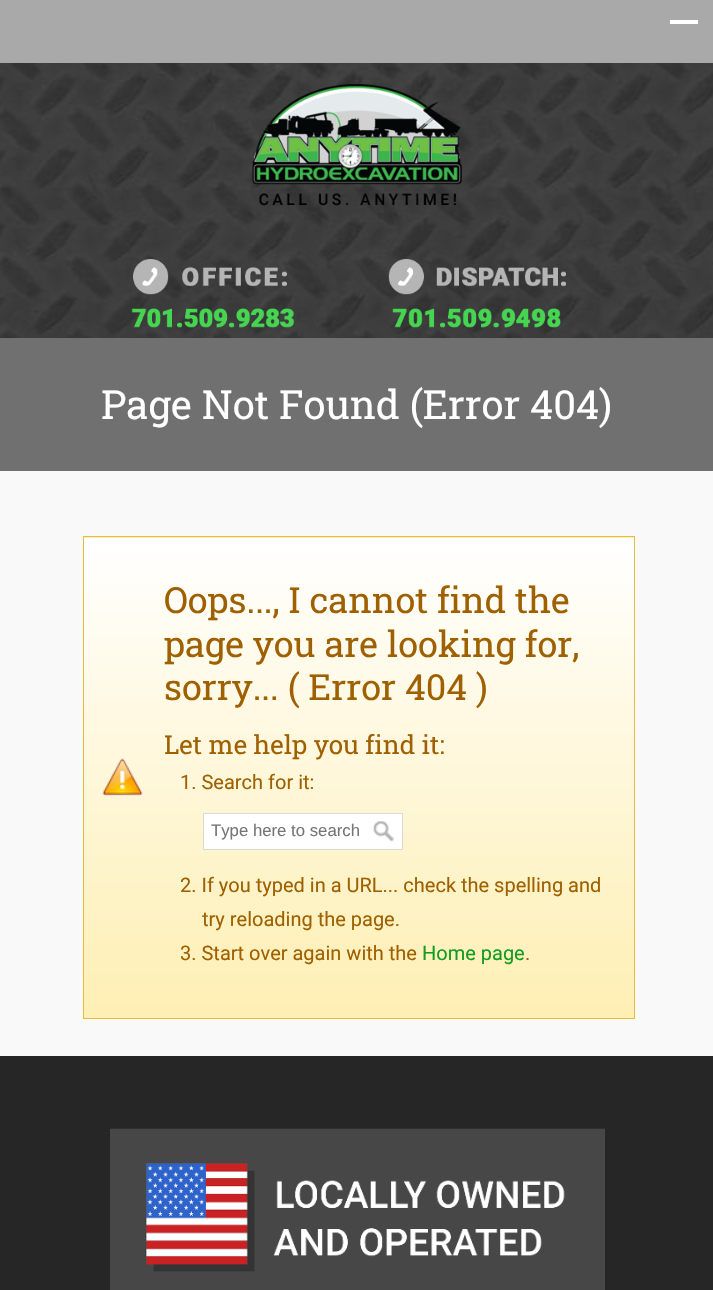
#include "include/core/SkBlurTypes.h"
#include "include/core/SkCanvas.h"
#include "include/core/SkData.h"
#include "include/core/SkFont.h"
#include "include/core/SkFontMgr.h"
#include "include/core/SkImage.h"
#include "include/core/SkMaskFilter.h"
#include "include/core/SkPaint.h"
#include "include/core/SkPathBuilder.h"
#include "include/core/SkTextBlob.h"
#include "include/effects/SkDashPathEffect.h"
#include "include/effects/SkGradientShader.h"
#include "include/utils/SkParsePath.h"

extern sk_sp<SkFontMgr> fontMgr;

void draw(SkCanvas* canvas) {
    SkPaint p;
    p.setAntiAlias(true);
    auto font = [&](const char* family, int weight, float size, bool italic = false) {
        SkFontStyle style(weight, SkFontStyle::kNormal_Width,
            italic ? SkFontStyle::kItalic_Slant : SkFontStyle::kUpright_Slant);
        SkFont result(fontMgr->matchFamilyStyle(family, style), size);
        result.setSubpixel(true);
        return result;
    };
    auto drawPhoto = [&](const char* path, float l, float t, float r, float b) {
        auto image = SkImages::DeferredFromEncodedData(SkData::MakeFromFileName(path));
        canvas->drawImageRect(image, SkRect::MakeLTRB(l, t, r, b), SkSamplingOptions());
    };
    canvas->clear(0xFF707070);
    p.setColor(0xFFA9A9A9);
    canvas->drawRect(SkRect::MakeLTRB(0, 0, 713, 63), p);
    p.setColor(0xFFFFFFFF);
    canvas->drawRect(SkRect::MakeLTRB(670, 20, 698, 24), p);
    drawPhoto("media/1.png", 0, 63, 713, 338);
    drawPhoto("media/2.png", 252, 84, 462, 206);
    drawPhoto("media/3.png", 131, 259, 295, 328);
    drawPhoto("media/4.png", 388, 259, 566, 328);
    auto font1 = font("Roboto Slab", 400, 40);
    canvas->drawString("Page Not Found (Error 404)", 101, 419, font1, p);
    p.setColor(0xFFF9F9F9);
    canvas->drawRect(SkRect::MakeLTRB(0, 471, 713, 1056), p);
    {
        const SkColor colors[] = {0xFFFFFFFF, 0xFFFEEFB3};
        const float stops[] = {0, 1};
        const SkPoint ends[] = {{359, 58}, {359, 538}};
        p.setShader(SkGradientShader::MakeLinear(ends, colors, stops, 2, SkTileMode::kClamp));
        p.setAlpha(255);
    }
    canvas->drawRect(SkRect::MakeLTRB(83, 537, 635, 538), p);
    {
        const SkColor colors[] = {0xFFFFFFFF, 0xFFFEEFB3};
        const float stops[] = {0, 1};
        const SkPoint ends[] = {{359, 538}, {359, 1018}};
        p.setShader(SkGradientShader::MakeLinear(ends, colors, stops, 2, SkTileMode::kClamp));
        p.setAlpha(255);
    }
    canvas->drawRect(SkRect::MakeLTRB(84, 538, 634, 1018), p);
    p.setStyle(SkPaint::kStroke_Style);
    p.setStrokeWidth(1);
    p.setShader(nullptr);
    p.setColor(0xFFE5BC3B);
    canvas->drawRect(SkRect::MakeLTRB(83.5f, 536.5f, 634.5f, 1018.5f), p);
    auto font2 = font("Roboto Slab", 400, 36);
    p.setStyle(SkPaint::kFill_Style);
    p.setColor(0xFF9F6000);
    {
        const struct { const char* s; float x, y; } items[] = {
            {"Oops..., I cannot find the", 164, 613},
            {"page you are looking for,", 164, 657},
            {"sorry... ( Error 404 )", 164, 700},
        };
        for (auto [s, x, y] : items) {
            canvas->drawString(s, x, y, font2, p);
        }
    }
    drawPhoto("media/5.png", 102, 758, 143, 796);
    auto font3 = font("Roboto Slab", 400, 26);
    canvas->drawString("Let me help you find it:", 164, 754, font3, p);
    auto font4 = font("Roboto", 400, 20);
    canvas->drawString("1. Search for it:", 180, 789, font4, p);
    p.setColor(0xFFFFFFFF);
    canvas->drawRect(SkRect::MakeLTRB(203.5f, 813.5f, 402.5f, 849.5f), p);
    p.setStyle(SkPaint::kStroke_Style);
    p.setColor(0xFFDDD9D9);
    canvas->drawRect(SkRect::MakeLTRB(203.5f, 813.5f, 402.5f, 849.5f), p);
    auto font5 = font("Liberation Sans", 400, 16.75f);
    p.setStyle(SkPaint::kFill_Style);
    p.setColor(0xFF757575);
    canvas->drawString("Type here to search", 211, 836, font5, p);
    drawPhoto("media/6.png", 373, 821, 394, 842);
    p.setColor(0xFF9F6000);
    {
        const struct { const char* s; float x, y; } items[] = {
            {"2. If you typed in a URL... check the spelling and", 180, 892},
            {"try reloading the page.", 202, 926},
            {"3. Start over again with the", 180, 960},
        };
        for (auto [s, x, y] : items) {
            canvas->drawString(s, x, y, font4, p);
        }
    }
    p.setColor(0xFF149C20);
    canvas->drawString("Home page", 422, 960, font4, p);
    p.setColor(0xFF9F6000);
    canvas->drawString(".", 525, 960, font4, p);
    p.setColor(0xFF262626);
    canvas->drawRect(SkRect::MakeLTRB(0, 1056, 713, 1290), p);
    drawPhoto("media/7.png", 110, 1128, 605, 1290);
}
